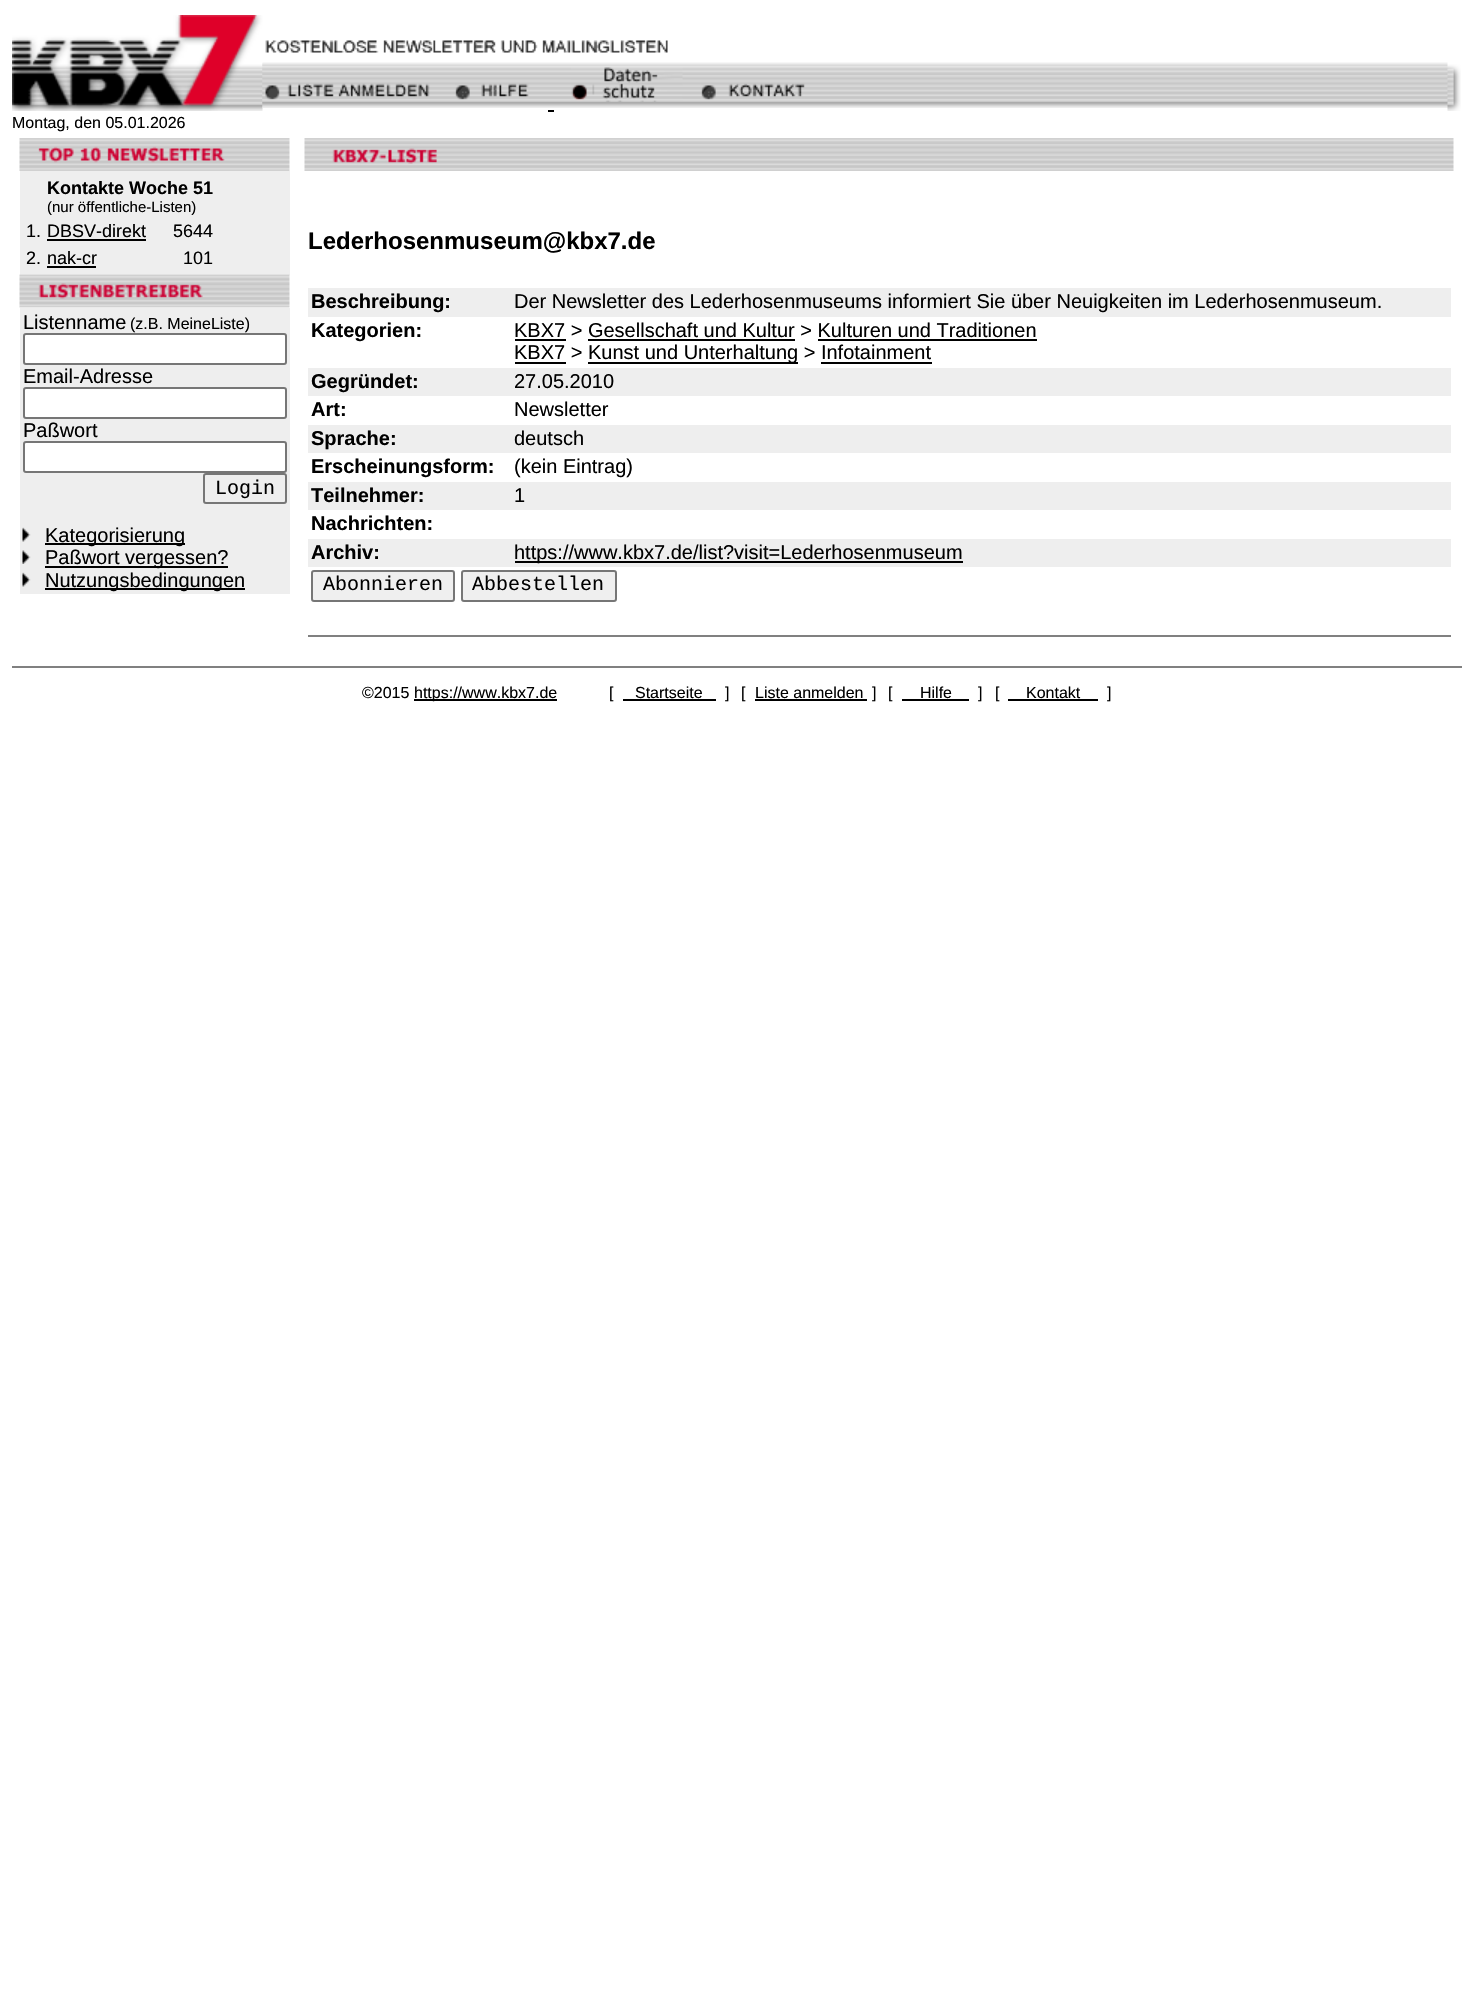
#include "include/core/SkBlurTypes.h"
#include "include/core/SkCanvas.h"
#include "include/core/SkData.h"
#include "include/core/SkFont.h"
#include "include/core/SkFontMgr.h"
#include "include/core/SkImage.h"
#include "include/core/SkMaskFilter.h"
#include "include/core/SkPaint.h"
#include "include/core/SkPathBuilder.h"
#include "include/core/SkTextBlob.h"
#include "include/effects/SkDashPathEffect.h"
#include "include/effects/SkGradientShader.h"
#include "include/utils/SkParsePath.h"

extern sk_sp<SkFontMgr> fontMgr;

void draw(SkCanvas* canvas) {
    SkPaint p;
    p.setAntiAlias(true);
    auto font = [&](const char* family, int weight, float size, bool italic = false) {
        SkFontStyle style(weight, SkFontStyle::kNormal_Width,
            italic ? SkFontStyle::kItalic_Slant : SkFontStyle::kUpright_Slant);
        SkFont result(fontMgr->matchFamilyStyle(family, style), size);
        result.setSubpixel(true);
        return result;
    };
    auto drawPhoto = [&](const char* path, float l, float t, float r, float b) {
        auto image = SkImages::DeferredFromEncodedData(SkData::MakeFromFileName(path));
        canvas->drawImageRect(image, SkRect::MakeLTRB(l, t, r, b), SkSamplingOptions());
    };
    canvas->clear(0xFFFFFFFF);
    drawPhoto("media/1.png", 262, 62, 1437, 108);
    drawPhoto("media/2.png", 12, 15, 263, 111);
    drawPhoto("media/3.png", 265, 40, 668, 53);
    drawPhoto("media/4.png", 262, 63, 430, 108);
    drawPhoto("media/5.png", 455, 83, 529, 100);
    drawPhoto("media/6.png", 571, 67, 683, 102);
    drawPhoto("media/7.png", 701, 83, 805, 100);
    p.setColor(0xFF000000);
    canvas->drawRect(SkRect::MakeLTRB(548, 110, 554, 112), p);
    drawPhoto("media/8.png", 1437, 62, 1448, 108);
    drawPhoto("media/9.png", 1447, 62, 1461, 111);
    auto font1 = font("Liberation Sans", 400, 16);
    canvas->drawString("Montag, den 05.01.2026", 12, 128, font1, p);
    drawPhoto("media/10.png", 19, 138, 290, 171);
    drawPhoto("media/11.png", 38, 146, 225, 163);
    p.setColor(0xFFEEEEEE);
    canvas->drawRect(SkRect::MakeLTRB(20, 171, 290, 275), p);
    auto font2 = font("Liberation Sans", 700, 18);
    p.setColor(0xFF000000);
    canvas->drawString("Kontakte Woche 51", 47, 194, font2, p);
    auto font3 = font("Liberation Sans", 400, 15);
    canvas->drawString("(nur öffentliche-Listen)", 47, 212, font3, p);
    auto font4 = font("Liberation Sans", 400, 18);
    canvas->drawString("1.", 26, 237, font4, p);
    canvas->drawString("DBSV-direkt", 47, 237, font4, p);
    canvas->drawRect(SkRect::MakeLTRB(47, 239, 146, 241), p);
    {
        const struct { const char* s; float x, y; } items[] = {
            {"5644", 173, 237},
            {"2.", 26, 264},
            {"nak-cr", 47, 264},
        };
        for (auto [s, x, y] : items) {
            canvas->drawString(s, x, y, font4, p);
        }
    }
    canvas->drawRect(SkRect::MakeLTRB(47, 266, 96, 268), p);
    canvas->drawString("101", 183, 264, font4, p);
    drawPhoto("media/12.png", 19, 274, 290, 308);
    drawPhoto("media/13.png", 38, 283, 203, 299);
    p.setColor(0xFFEEEEEE);
    canvas->drawRect(SkRect::MakeLTRB(20, 308, 290, 594), p);
    auto font5 = font("Liberation Sans", 400, 20);
    p.setColor(0xFF000000);
    canvas->drawString("Listenname", 23, 329, font5, p);
    canvas->drawString("(z.B. MeineListe)", 130, 329, font1, p);
    p.setColor(0xFFFFFFFF);
    canvas->drawRoundRect(SkRect::MakeLTRB(24, 334, 286, 364), 2, 2, p);
    p.setStyle(SkPaint::kStroke_Style);
    p.setStrokeWidth(2);
    p.setColor(0xFF767676);
    canvas->drawRoundRect(SkRect::MakeLTRB(24, 334, 286, 364), 2, 2, p);
    p.setStyle(SkPaint::kFill_Style);
    p.setColor(0xFF000000);
    canvas->drawString("Email-Adresse", 23, 383, font5, p);
    p.setColor(0xFFFFFFFF);
    canvas->drawRoundRect(SkRect::MakeLTRB(24, 388, 286, 418), 2, 2, p);
    p.setStyle(SkPaint::kStroke_Style);
    p.setColor(0xFF767676);
    canvas->drawRoundRect(SkRect::MakeLTRB(24, 388, 286, 418), 2, 2, p);
    p.setStyle(SkPaint::kFill_Style);
    p.setColor(0xFF000000);
    canvas->drawString("Paßwort", 23, 437, font5, p);
    p.setColor(0xFFFFFFFF);
    canvas->drawRoundRect(SkRect::MakeLTRB(24, 442, 286, 472), 2, 2, p);
    p.setStyle(SkPaint::kStroke_Style);
    p.setColor(0xFF767676);
    canvas->drawRoundRect(SkRect::MakeLTRB(24, 442, 286, 472), 2, 2, p);
    canvas->drawRoundRect(SkRect::MakeLTRB(204, 474, 286, 503), 2, 2, p);
    auto font6 = font("Liberation Mono", 400, 20);
    p.setStyle(SkPaint::kFill_Style);
    p.setColor(0xFF000000);
    canvas->drawString("Login", 215, 494, font6, p);
    drawPhoto("media/14.png", 22, 527, 31, 542);
    canvas->drawRect(SkRect::MakeLTRB(45, 543, 185, 545), p);
    canvas->drawString("Kategorisierung", 45, 542, font5, p);
    drawPhoto("media/15.png", 22, 550, 31, 564);
    canvas->drawRect(SkRect::MakeLTRB(45, 566, 228, 568), p);
    canvas->drawString("Paßwort vergessen?", 45, 564, font5, p);
    drawPhoto("media/14.png", 22, 572, 31, 587);
    canvas->drawRect(SkRect::MakeLTRB(45, 588, 245, 590), p);
    canvas->drawString("Nutzungsbedingungen", 45, 587, font5, p);
    drawPhoto("media/16.png", 304, 138, 1454, 171);
    drawPhoto("media/17.png", 332, 148, 437, 164);
    auto font7 = font("Liberation Sans", 700, 24);
    canvas->drawString("Lederhosenmuseum@kbx7.de", 308, 249, font7, p);
    p.setColor(0xFFEEEEEE);
    canvas->drawRect(SkRect::MakeLTRB(308, 288, 1451, 317), p);
    auto font8 = font("Liberation Sans", 700, 20);
    p.setColor(0xFF000000);
    canvas->drawString("Beschreibung:", 311, 308, font8, p);
    canvas->drawString("Der Newsletter des Lederhosenmuseums informiert Sie über Neuigkeiten im Lederhosenmuseum.", 514, 308, font5, p);
    canvas->drawString("Kategorien:", 311, 337, font8, p);
    canvas->drawString("KBX7 > Gesellschaft und Kultur > Kulturen und Traditionen", 514, 337, font5, p);
    {
        const struct { float l, t, r, b; SkColor color; } items[] = {
            {515, 339, 566, 341, 0xFF000000},
            {588, 339, 795, 341, 0xFF000000},
            {818, 339, 1037, 341, 0xFF000000},
        };
        for (auto [l, t, r, b, color] : items) {
            p.setColor(color);
            canvas->drawRect(SkRect::MakeLTRB(l, t, r, b), p);
        }
    }
    canvas->drawString("KBX7 >", 514, 359, font5, p);
    canvas->drawRect(SkRect::MakeLTRB(515, 362, 566, 364), p);
    canvas->drawRect(SkRect::MakeLTRB(588, 362, 798, 364), p);
    canvas->drawString("Kunst und Unterhaltung > Infotainment", 588, 359, font5, p);
    canvas->drawRect(SkRect::MakeLTRB(821, 362, 932, 364), p);
    p.setColor(0xFFEEEEEE);
    canvas->drawRect(SkRect::MakeLTRB(308, 368, 1451, 396), p);
    p.setColor(0xFF000000);
    canvas->drawString("Gegründet:", 311, 388, font8, p);
    canvas->drawString("27.05.2010", 514, 388, font5, p);
    canvas->drawString("Art:", 311, 416, font8, p);
    canvas->drawString("Newsletter", 514, 416, font5, p);
    p.setColor(0xFFEEEEEE);
    canvas->drawRect(SkRect::MakeLTRB(308, 425, 1451, 453), p);
    p.setColor(0xFF000000);
    canvas->drawString("Sprache:", 311, 445, font8, p);
    canvas->drawString("deutsch", 514, 445, font5, p);
    canvas->drawString("Erscheinungsform:", 311, 473, font8, p);
    canvas->drawString("(kein Eintrag)", 514, 473, font5, p);
    p.setColor(0xFFEEEEEE);
    canvas->drawRect(SkRect::MakeLTRB(308, 482, 1451, 510), p);
    p.setColor(0xFF000000);
    canvas->drawString("Teilnehmer:", 311, 502, font8, p);
    canvas->drawString("1", 514, 502, font5, p);
    canvas->drawString("Nachrichten:", 311, 530, font8, p);
    p.setColor(0xFFEEEEEE);
    canvas->drawRect(SkRect::MakeLTRB(308, 539, 1451, 567), p);
    p.setColor(0xFF000000);
    canvas->drawString("Archiv:", 311, 559, font8, p);
    canvas->drawRect(SkRect::MakeLTRB(515, 561, 963, 563), p);
    canvas->drawString("https://www.kbx7.de/list?visit=Lederhosenmuseum", 514, 559, font5, p);
    p.setColor(0xFFEFEFEF);
    canvas->drawRoundRect(SkRect::MakeLTRB(312, 571, 454, 601), 2, 2, p);
    p.setStyle(SkPaint::kStroke_Style);
    p.setColor(0xFF767676);
    canvas->drawRoundRect(SkRect::MakeLTRB(312, 571, 454, 601), 2, 2, p);
    p.setStyle(SkPaint::kFill_Style);
    p.setColor(0xFF000000);
    canvas->drawString("Abonnieren", 323, 590, font6, p);
    p.setColor(0xFFEFEFEF);
    canvas->drawRoundRect(SkRect::MakeLTRB(462, 571, 616, 601), 2, 2, p);
    p.setStyle(SkPaint::kStroke_Style);
    p.setColor(0xFF767676);
    canvas->drawRoundRect(SkRect::MakeLTRB(462, 571, 616, 601), 2, 2, p);
    p.setStyle(SkPaint::kFill_Style);
    p.setColor(0xFF000000);
    canvas->drawString("Abbestellen", 472, 590, font6, p);
    p.setColor(0xFF808080);
    canvas->drawRect(SkRect::MakeLTRB(308, 635, 1451, 637), p);
    canvas->drawRect(SkRect::MakeLTRB(12, 666, 1462, 668), p);
    p.setColor(0xFF000000);
    canvas->drawString("©2015", 362, 698, font1, p);
    canvas->drawRect(SkRect::MakeLTRB(414, 699, 557, 701), p);
    {
        const struct { const char* s; float x, y; } items[] = {
            {"https://www.kbx7.de", 414, 698},
            {"[", 609, 698},
            {"Startseite", 635, 698},
        };
        for (auto [s, x, y] : items) {
            canvas->drawString(s, x, y, font1, p);
        }
    }
    canvas->drawRect(SkRect::MakeLTRB(623, 699, 716, 701), p);
    {
        const struct { const char* s; float x, y; } items[] = {
            {"]", 725, 698},
            {"[", 741, 698},
            {"Liste anmelden", 755, 698},
        };
        for (auto [s, x, y] : items) {
            canvas->drawString(s, x, y, font1, p);
        }
    }
    canvas->drawRect(SkRect::MakeLTRB(755, 699, 867, 701), p);
    {
        const struct { const char* s; float x, y; } items[] = {
            {"]", 872, 698},
            {"[", 888, 698},
            {"Hilfe", 920, 698},
        };
        for (auto [s, x, y] : items) {
            canvas->drawString(s, x, y, font1, p);
        }
    }
    canvas->drawRect(SkRect::MakeLTRB(902, 699, 969, 701), p);
    {
        const struct { const char* s; float x, y; } items[] = {
            {"]", 978, 698},
            {"[", 995, 698},
            {"Kontakt", 1026, 698},
        };
        for (auto [s, x, y] : items) {
            canvas->drawString(s, x, y, font1, p);
        }
    }
    canvas->drawRect(SkRect::MakeLTRB(1008, 699, 1098, 701), p);
    canvas->drawString("]", 1107, 698, font1, p);
}
